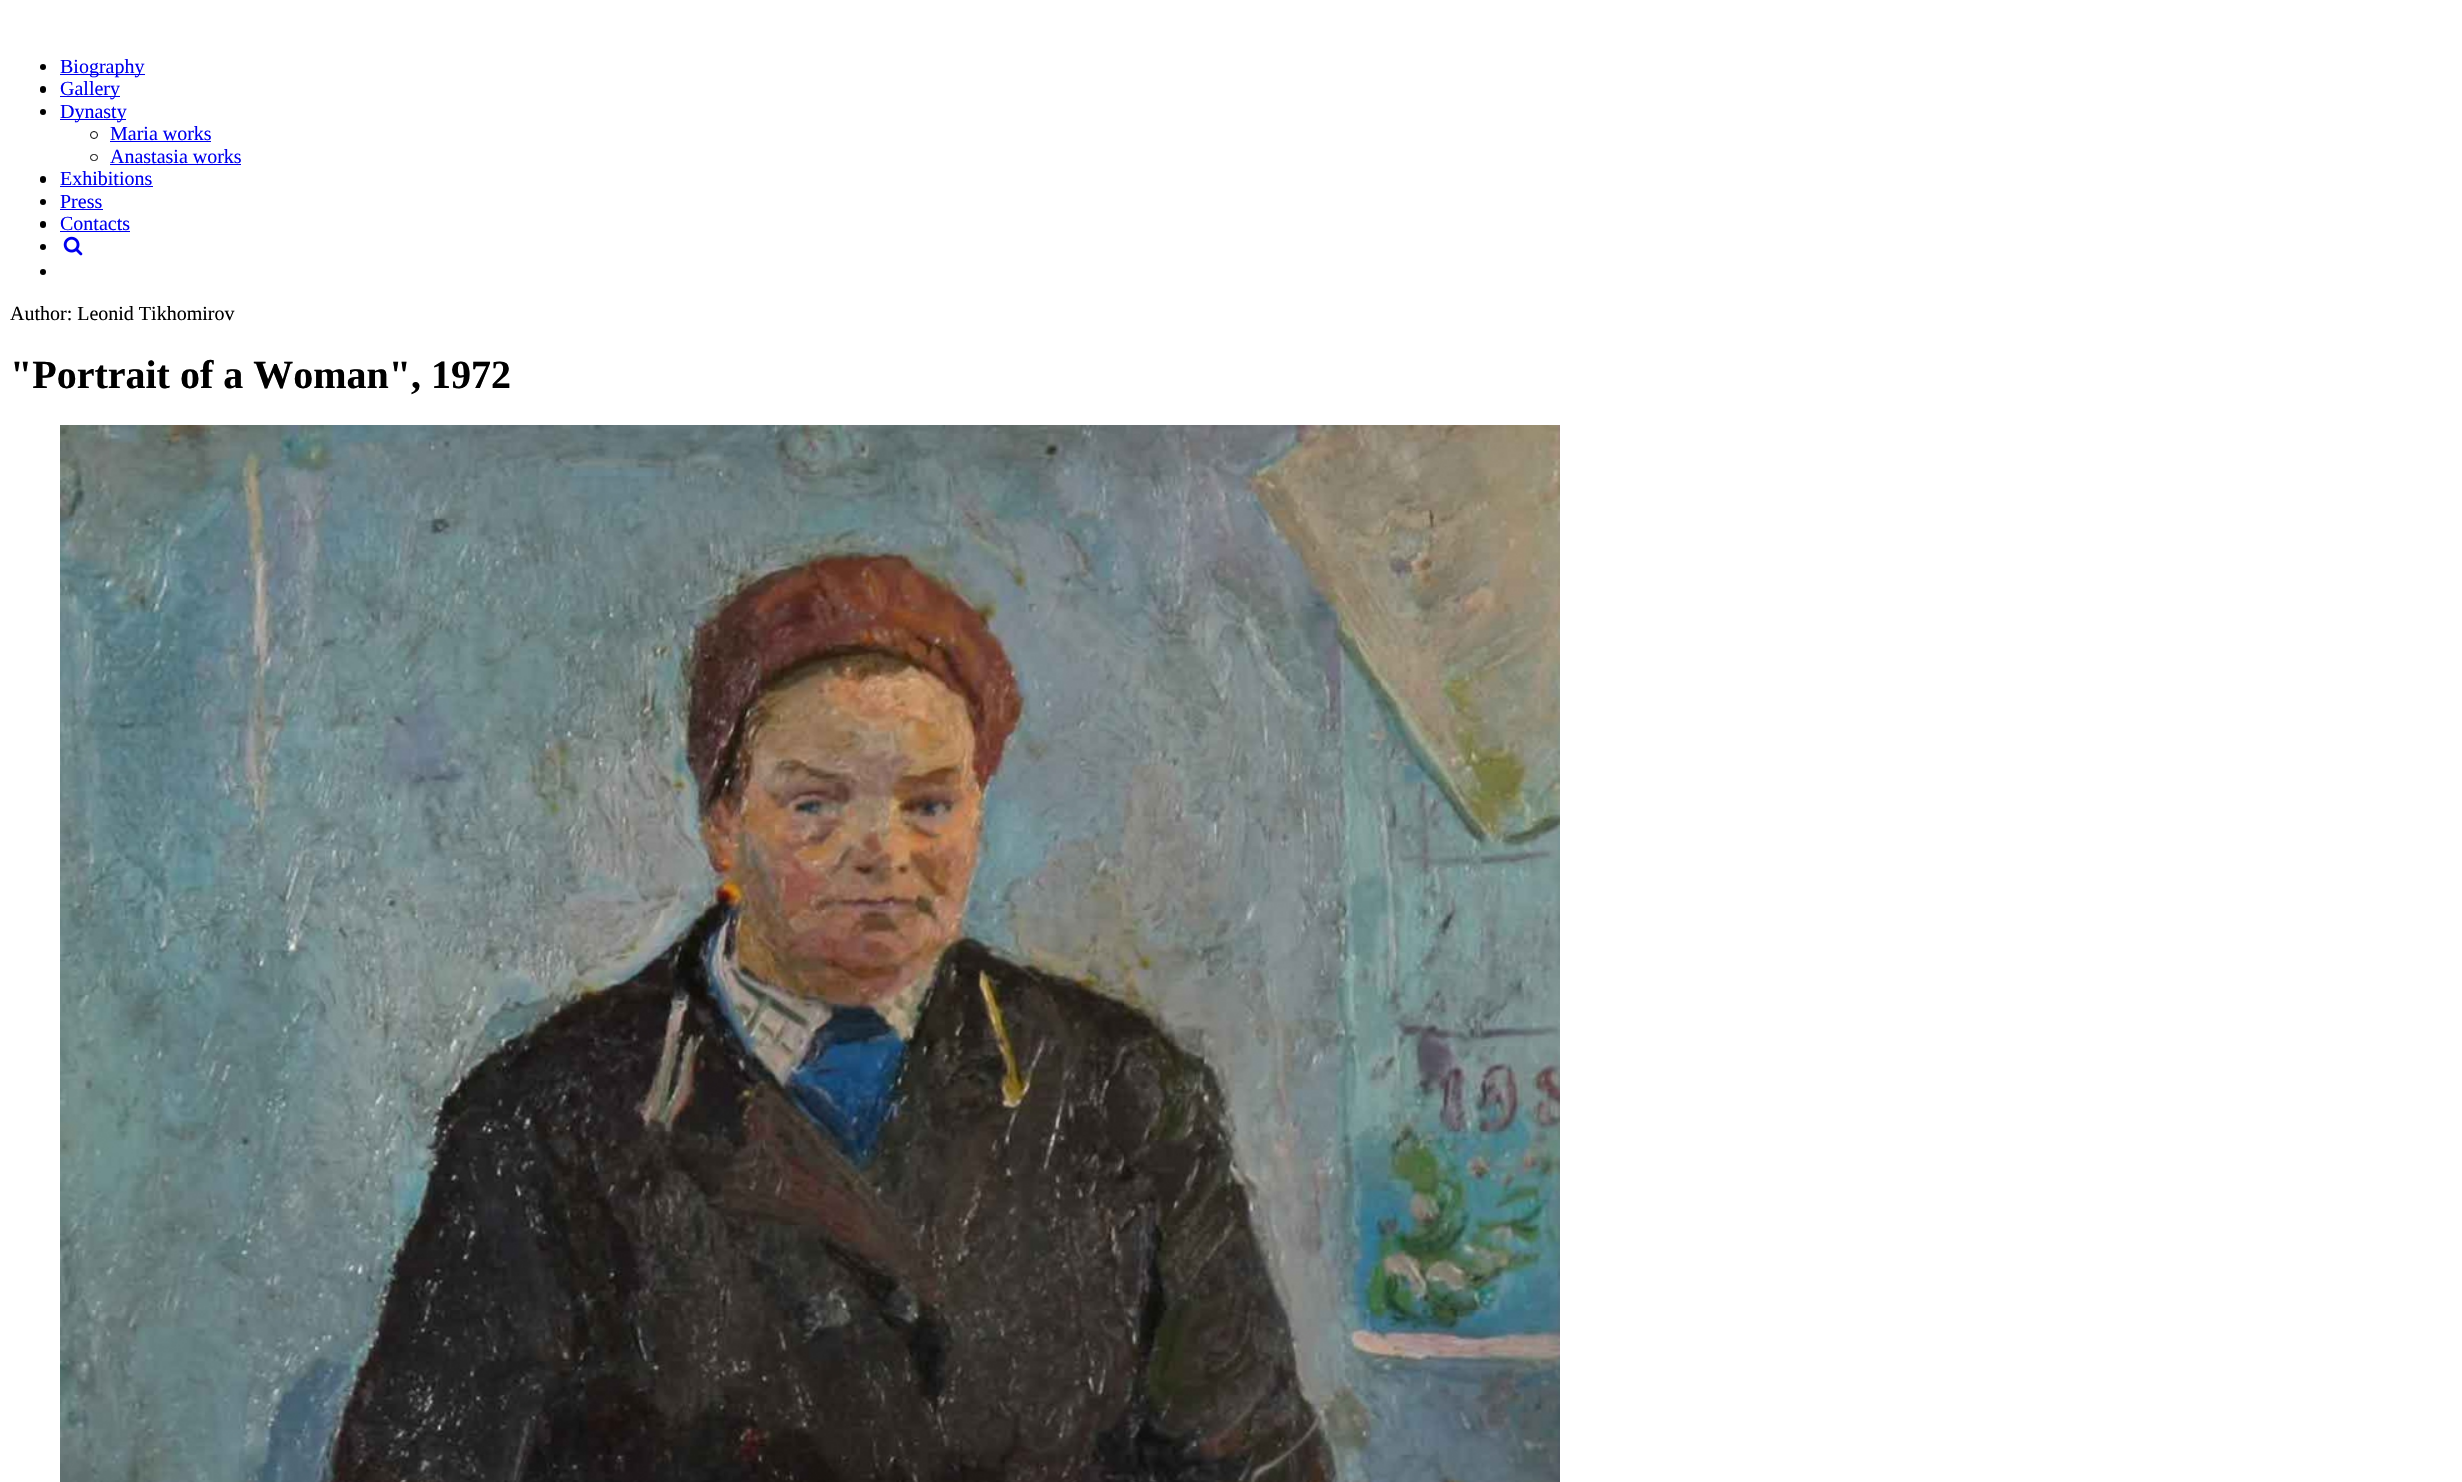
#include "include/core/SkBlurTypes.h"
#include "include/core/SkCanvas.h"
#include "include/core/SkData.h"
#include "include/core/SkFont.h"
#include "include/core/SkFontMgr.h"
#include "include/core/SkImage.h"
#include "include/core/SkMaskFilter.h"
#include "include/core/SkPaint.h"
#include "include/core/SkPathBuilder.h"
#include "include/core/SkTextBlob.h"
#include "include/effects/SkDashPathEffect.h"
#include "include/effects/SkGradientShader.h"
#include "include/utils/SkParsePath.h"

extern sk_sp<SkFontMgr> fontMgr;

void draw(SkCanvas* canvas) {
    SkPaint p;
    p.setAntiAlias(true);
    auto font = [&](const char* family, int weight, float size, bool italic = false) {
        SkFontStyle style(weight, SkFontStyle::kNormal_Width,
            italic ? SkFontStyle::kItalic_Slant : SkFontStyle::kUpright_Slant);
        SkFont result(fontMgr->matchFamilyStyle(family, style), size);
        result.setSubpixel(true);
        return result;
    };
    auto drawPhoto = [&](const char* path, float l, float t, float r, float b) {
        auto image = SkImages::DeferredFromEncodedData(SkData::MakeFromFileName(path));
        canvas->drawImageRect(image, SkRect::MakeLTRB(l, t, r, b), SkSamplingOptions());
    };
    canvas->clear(0xFFFFFFFF);
    p.setColor(0xFF000000);
    canvas->drawCircle(43, 67, 3, p);
    p.setColor(0xFF0000EE);
    canvas->drawRect(SkRect::MakeLTRB(60, 74, 145, 75), p);
    auto font1 = font("Liberation Serif", 400, 20);
    canvas->drawString("Biography", 60, 73, font1, p);
    p.setColor(0xFF000000);
    canvas->drawRoundRect(SkRect::MakeLTRB(40, 86, 46, 93), 3, 3, p);
    p.setColor(0xFF0000EE);
    canvas->drawRect(SkRect::MakeLTRB(60, 96, 120, 97), p);
    canvas->drawString("Gallery", 60, 95, font1, p);
    p.setColor(0xFF000000);
    canvas->drawCircle(43, 112, 3, p);
    p.setColor(0xFF0000EE);
    canvas->drawRect(SkRect::MakeLTRB(60, 119, 126, 120), p);
    canvas->drawString("Dynasty", 60, 118, font1, p);
    p.setStyle(SkPaint::kStroke_Style);
    p.setStrokeWidth(1);
    p.setColor(0xFF000000);
    canvas->drawCircle(94, 135, 3.5f, p);
    p.setStyle(SkPaint::kFill_Style);
    p.setColor(0xFF0000EE);
    canvas->drawString("Maria works", 110, 140, font1, p);
    canvas->drawRect(SkRect::MakeLTRB(110, 141, 211, 142), p);
    p.setStyle(SkPaint::kStroke_Style);
    p.setColor(0xFF000000);
    canvas->drawRoundRect(SkRect::MakeLTRB(90.5f, 154.5f, 97.5f, 160.5f), 3, 3, p);
    p.setStyle(SkPaint::kFill_Style);
    p.setColor(0xFF0000EE);
    canvas->drawString("Anastasia works", 110, 163, font1, p);
    canvas->drawRect(SkRect::MakeLTRB(110, 164, 241, 165), p);
    p.setColor(0xFF000000);
    canvas->drawRoundRect(SkRect::MakeLTRB(40, 176, 46, 183), 3, 3, p);
    p.setColor(0xFF0000EE);
    canvas->drawString("Exhibitions", 60, 185, font1, p);
    canvas->drawRect(SkRect::MakeLTRB(60, 186, 153, 187), p);
    p.setColor(0xFF000000);
    canvas->drawCircle(43, 202, 3, p);
    p.setColor(0xFF0000EE);
    canvas->drawString("Press", 60, 208, font1, p);
    canvas->drawRect(SkRect::MakeLTRB(60, 209, 103, 210), p);
    p.setColor(0xFF000000);
    canvas->drawRoundRect(SkRect::MakeLTRB(40, 221, 46, 228), 3, 3, p);
    p.setColor(0xFF0000EE);
    canvas->drawString("Contacts", 60, 230, font1, p);
    canvas->drawRect(SkRect::MakeLTRB(60, 231, 130, 232), p);
    p.setColor(0xFF000000);
    canvas->drawCircle(43, 247, 3, p);
    drawPhoto("media/1.png", 63, 236, 83, 256);
    canvas->drawCircle(43, 272, 3, p);
    canvas->drawString("Author: Leonid Tikhomirov", 10, 320, font1, p);
    auto font2 = font("Liberation Serif", 700, 40);
    canvas->drawString("\"Portrait of a Woman\", 1972", 10, 388, font2, p);
    drawPhoto("media/2.png", 60, 425, 1560, 1482);
}
